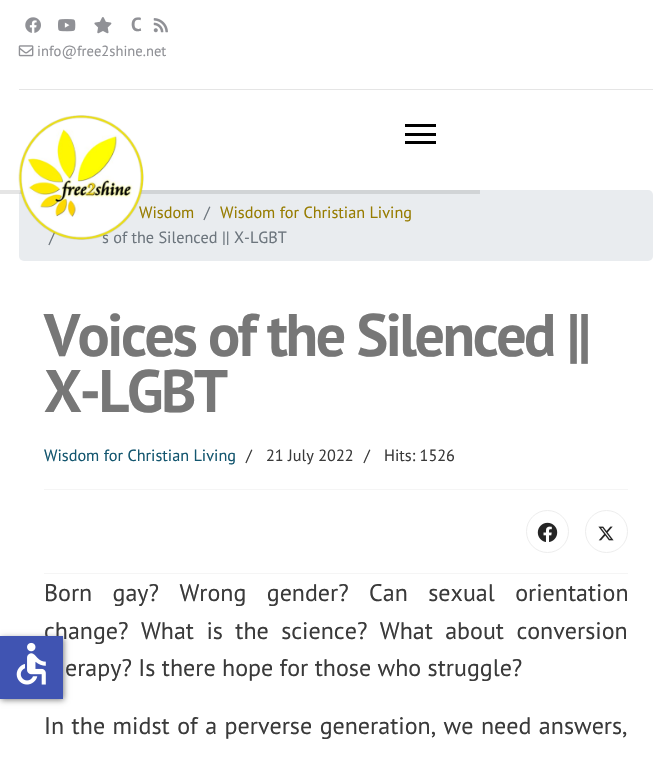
#include "include/core/SkBlurTypes.h"
#include "include/core/SkCanvas.h"
#include "include/core/SkData.h"
#include "include/core/SkFont.h"
#include "include/core/SkFontMgr.h"
#include "include/core/SkImage.h"
#include "include/core/SkMaskFilter.h"
#include "include/core/SkPaint.h"
#include "include/core/SkPathBuilder.h"
#include "include/core/SkTextBlob.h"
#include "include/effects/SkDashPathEffect.h"
#include "include/effects/SkGradientShader.h"
#include "include/utils/SkParsePath.h"

extern sk_sp<SkFontMgr> fontMgr;

void draw(SkCanvas* canvas) {
    SkPaint p;
    p.setAntiAlias(true);
    auto font = [&](const char* family, int weight, float size, bool italic = false) {
        SkFontStyle style(weight, SkFontStyle::kNormal_Width,
            italic ? SkFontStyle::kItalic_Slant : SkFontStyle::kUpright_Slant);
        SkFont result(fontMgr->matchFamilyStyle(family, style), size);
        result.setSubpixel(true);
        return result;
    };
    auto drawTracked = [&](const char* s, float x, float y, const SkFont& font, const SkPaint& ink, float letter, float word) {
        std::vector<SkGlyphID> glyphs(font.countText(s, strlen(s), SkTextEncoding::kUTF8));
        std::vector<float> xs(glyphs.size());
        font.textToGlyphs(s, strlen(s), SkTextEncoding::kUTF8, glyphs);
        font.getXPos(glyphs, xs, x);
        float extra = 0;
        for (size_t i = 0; i < glyphs.size(); i++) {
            xs[i] += extra;
            extra += letter + word * (glyphs[i] == font.unicharToGlyph(' '));
        }
        canvas->drawTextBlob(SkTextBlob::MakeFromPosHGlyphs(glyphs, xs, y, font), 0, 0, ink);
    };
    auto drawPhoto = [&](const char* path, float l, float t, float r, float b) {
        auto image = SkImages::DeferredFromEncodedData(SkData::MakeFromFileName(path));
        canvas->drawImageRect(image, SkRect::MakeLTRB(l, t, r, b), SkSamplingOptions());
    };
    canvas->clear(0xFFFFFFFF);
    p.setColor(0x80000000);
    p.setMaskFilter(SkMaskFilter::MakeBlur(kNormal_SkBlurStyle, 3));
    canvas->drawRect(SkRect::MakeLTRB(1, 638, 64, 700), p);
    p.setMaskFilter(nullptr);
    auto font1 = font("PT Sans", 400, 24);
    p.setColor(0xFF3A3A3A);
    drawTracked("change? What is the science? What about conversion", 44, 639, font1, p, 0, 6);
    p.setColor(0xFF4054B2);
    canvas->drawRect(SkRect::MakeLTRB(0, 636, 63, 699), p);
    drawPhoto("media/1.png", 16, 642, 46, 685);
    p.setColor(0xFFE5E5E5);
    canvas->drawRect(SkRect::MakeLTRB(19, 89, 653, 90), p);
    drawPhoto("media/2.png", 25, 17, 41, 33);
    drawPhoto("media/3.png", 58, 19, 76, 32);
    drawPhoto("media/4.png", 94, 17, 112, 34);
    auto font2 = font("PT Sans", 700, 19);
    p.setColor(0xFF909196);
    drawTracked("C", 131, 31, font2, p, -1, 0);
    drawPhoto("media/5.png", 153, 18, 168, 33);
    drawPhoto("media/6.png", 18, 45, 34, 57);
    auto font3 = font("PT Sans", 400, 14.6f);
    canvas->drawString("info@free2shine.net", 37, 56, font3, p);
    p.setColor(0xFFE9ECEF);
    canvas->drawRoundRect(SkRect::MakeLTRB(19, 190, 653, 261), 5, 5, p);
    canvas->save();
    canvas->clipRect(SkRect::MakeLTRB(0, 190, 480, 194));
    p.setColor(0x1A000000);
    p.setMaskFilter(SkMaskFilter::MakeBlur(kNormal_SkBlurStyle, 0.5f));
    canvas->drawRect(SkRect::MakeLTRB(0, 106, 480, 194), p);
    p.setMaskFilter(nullptr);
    canvas->restore();
    auto font4 = font("PT Sans", 400, 16.25f);
    p.setColor(0xFF977C00);
    canvas->drawString("Wisdom", 139, 218, font4, p);
    p.setColor(0xFF6C757D);
    canvas->drawString("/", 49, 243, font4, p);
    canvas->drawString("s of the Silenced || X-LGBT", 102, 243, font4, p);
    drawPhoto("media/7.png", 18, 115, 144, 240);
    {
        const struct { float l, t, r, b; SkColor color; } items[] = {
            {405, 124, 436, 127, 0xFF000000},
            {405, 133, 436, 136, 0xFF000000},
            {405, 141, 436, 144, 0xFF000000},
        };
        for (auto [l, t, r, b, color] : items) {
            p.setColor(color);
            canvas->drawRect(SkRect::MakeLTRB(l, t, r, b), p);
        }
    }
    p.setColor(0xFF6C757D);
    canvas->drawString("/", 204, 218, font4, p);
    p.setColor(0xFF977C00);
    canvas->drawString("Wisdom for Christian Living", 220, 218, font4, p);
    auto font5 = font("PT Sans", 700, 60);
    p.setColor(0xFF777777);
    drawTracked("Voices of the Silenced ||", 44, 356, font5, p, -2.5f, 0);
    drawTracked("X-LGBT", 44, 412, font5, p, -2.5f, 0);
    p.setColor(0xFF13566F);
    canvas->drawString("Wisdom for Christian Living", 44, 461, font4, p);
    p.setColor(0xFF3A3A3A);
    {
        const struct { const char* s; float x, y; } items[] = {
            {"/", 246, 461},
            {"21 July 2022", 266, 461},
            {"/", 364, 461},
            {"Hits: 1526", 384, 461},
        };
        for (auto [s, x, y] : items) {
            canvas->drawString(s, x, y, font4, p);
        }
    }
    p.setColor(0xFFF5F5F5);
    canvas->drawRect(SkRect::MakeLTRB(44, 489, 628, 490), p);
    canvas->drawRect(SkRect::MakeLTRB(44, 573, 628, 574), p);
    p.setStyle(SkPaint::kStroke_Style);
    p.setStrokeWidth(1);
    p.setColor(0xFFEDEDED);
    canvas->drawCircle(547.5f, 531.5f, 21, p);
    drawPhoto("media/8.png", 537, 522, 558, 542);
    canvas->drawCircle(606.5f, 531.5f, 21, p);
    drawPhoto("media/9.png", 598, 526, 614, 541);
    p.setStyle(SkPaint::kFill_Style);
    p.setColor(0xFF3A3A3A);
    drawTracked("Born gay? Wrong gender? Can sexual orientation", 44, 601, font1, p, 0, 14);
    canvas->drawString("erapy? Is there hope for those who struggle?", 65, 676, font1, p);
    drawTracked("In the midst of a perverse generation, we need answers,", 44, 734, font1, p, 0, 1.1f);
}
